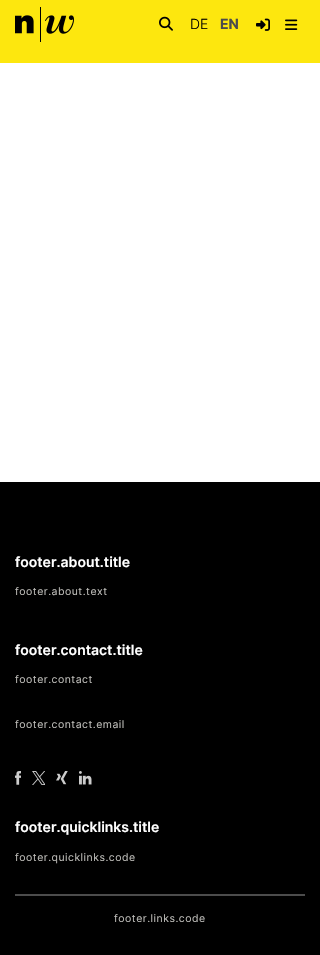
#include "include/core/SkBlurTypes.h"
#include "include/core/SkCanvas.h"
#include "include/core/SkData.h"
#include "include/core/SkFont.h"
#include "include/core/SkFontMgr.h"
#include "include/core/SkImage.h"
#include "include/core/SkMaskFilter.h"
#include "include/core/SkPaint.h"
#include "include/core/SkPathBuilder.h"
#include "include/core/SkTextBlob.h"
#include "include/effects/SkDashPathEffect.h"
#include "include/effects/SkGradientShader.h"
#include "include/utils/SkParsePath.h"

extern sk_sp<SkFontMgr> fontMgr;

void draw(SkCanvas* canvas) {
    SkPaint p;
    p.setAntiAlias(true);
    auto font = [&](const char* family, int weight, float size, bool italic = false) {
        SkFontStyle style(weight, SkFontStyle::kNormal_Width,
            italic ? SkFontStyle::kItalic_Slant : SkFontStyle::kUpright_Slant);
        SkFont result(fontMgr->matchFamilyStyle(family, style), size);
        result.setSubpixel(true);
        return result;
    };
    auto drawTracked = [&](const char* s, float x, float y, const SkFont& font, const SkPaint& ink, float letter, float word) {
        std::vector<SkGlyphID> glyphs(font.countText(s, strlen(s), SkTextEncoding::kUTF8));
        std::vector<float> xs(glyphs.size());
        font.textToGlyphs(s, strlen(s), SkTextEncoding::kUTF8, glyphs);
        font.getXPos(glyphs, xs, x);
        float extra = 0;
        for (size_t i = 0; i < glyphs.size(); i++) {
            xs[i] += extra;
            extra += letter + word * (glyphs[i] == font.unicharToGlyph(' '));
        }
        canvas->drawTextBlob(SkTextBlob::MakeFromPosHGlyphs(glyphs, xs, y, font), 0, 0, ink);
    };
    auto drawPhoto = [&](const char* path, float l, float t, float r, float b) {
        auto image = SkImages::DeferredFromEncodedData(SkData::MakeFromFileName(path));
        canvas->drawImageRect(image, SkRect::MakeLTRB(l, t, r, b), SkSamplingOptions());
    };
    canvas->clear(0xFFFFFFFF);
    p.setColor(0xFFFDE70E);
    canvas->drawRect(SkRect::MakeLTRB(0, 0, 320, 63), p);
    drawPhoto("media/1.png", 15, 7, 74, 42);
    drawPhoto("media/2.png", 159, 16, 173, 31);
    auto font1 = font("Inter", 300, 14);
    p.setColor(0xFF000000);
    canvas->drawString("DE", 190, 29, font1, p);
    auto font2 = font("Inter", 700, 14);
    p.setColor(0xFF4C4C4C);
    canvas->drawString("EN", 220, 29, font2, p);
    drawPhoto("media/3.png", 256, 18, 270, 31);
    drawPhoto("media/4.png", 285, 19, 298, 30);
    p.setColor(0xFF000000);
    canvas->drawRect(SkRect::MakeLTRB(0, 482, 320, 955), p);
    auto font3 = font("Inter", 600, 14);
    p.setColor(0xFFFFFFFF);
    canvas->drawString("footer.about.title", 15, 567, font3, p);
    auto font4 = font("Inter", 400, 10.5f);
    p.setColor(0xFFBEBDB9);
    drawTracked("footer.about.text", 15, 595, font4, p, 0.5f, 0);
    p.setColor(0xFFFFFFFF);
    canvas->drawString("footer.contact.title", 15, 655, font3, p);
    p.setColor(0xFFBEBDB9);
    drawTracked("footer.contact", 15, 683, font4, p, 0.5f, 0);
    drawTracked("footer.contact.email", 15, 728, font4, p, 0.5f, 0);
    drawPhoto("media/5.png", 15, 771, 21, 785);
    drawPhoto("media/6.png", 32, 771, 45, 785);
    drawPhoto("media/7.png", 56, 771, 68, 785);
    drawPhoto("media/8.png", 79, 771, 92, 785);
    p.setColor(0xFFFFFFFF);
    canvas->drawString("footer.quicklinks.title", 15, 832, font3, p);
    p.setColor(0xFFBEBDB9);
    drawTracked("footer.quicklinks.code", 15, 861, font4, p, 0.5f, 0);
    p.setColor(0xFF4C4C4C);
    canvas->drawRect(SkRect::MakeLTRB(15, 894, 305, 896), p);
    p.setColor(0xFFBEBDB9);
    drawTracked("footer.links.code", 114, 922, font4, p, 0.5f, 0);
}
